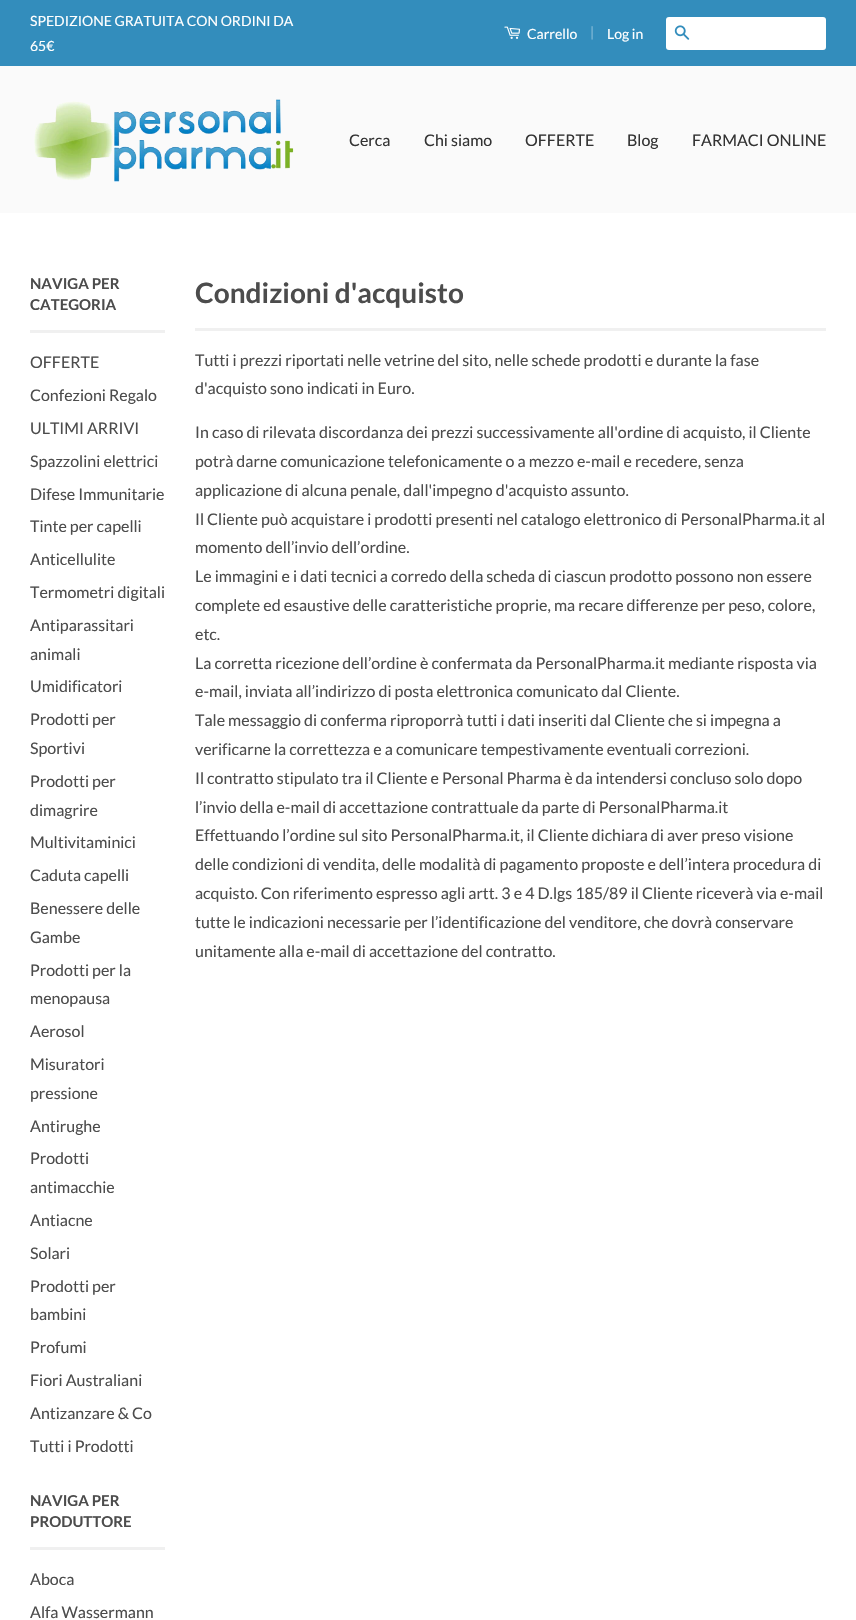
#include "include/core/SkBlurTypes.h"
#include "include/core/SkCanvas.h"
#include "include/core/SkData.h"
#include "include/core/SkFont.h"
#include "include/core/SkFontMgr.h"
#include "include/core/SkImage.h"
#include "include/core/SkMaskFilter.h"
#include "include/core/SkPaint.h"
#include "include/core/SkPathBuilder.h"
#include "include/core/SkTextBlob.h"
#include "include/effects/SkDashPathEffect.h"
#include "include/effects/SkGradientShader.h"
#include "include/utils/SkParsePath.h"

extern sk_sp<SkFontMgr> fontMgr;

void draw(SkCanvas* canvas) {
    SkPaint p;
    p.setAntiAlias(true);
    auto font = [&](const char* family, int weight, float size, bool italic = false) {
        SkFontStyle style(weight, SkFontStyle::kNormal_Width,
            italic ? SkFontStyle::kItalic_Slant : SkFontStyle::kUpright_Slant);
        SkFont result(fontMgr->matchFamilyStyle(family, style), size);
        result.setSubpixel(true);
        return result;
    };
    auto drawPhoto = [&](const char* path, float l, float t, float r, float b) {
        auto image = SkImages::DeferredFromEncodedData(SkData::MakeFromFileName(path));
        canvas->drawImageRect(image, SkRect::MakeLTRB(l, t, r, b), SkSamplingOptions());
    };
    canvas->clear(0xFFFFFFFF);
    p.setColor(0xFF338DBC);
    canvas->drawRect(SkRect::MakeLTRB(0, 0, 856, 66), p);
    auto font1 = font("Lato", 400, 14);
    p.setColor(0xFFFFFFFF);
    canvas->drawString("SPEDIZIONE GRATUITA CON ORDINI DA", 30, 26, font1, p);
    canvas->drawString("65€", 30, 51, font1, p);
    drawPhoto("media/1.png", 504, 26, 521, 39);
    canvas->drawString("Carrello", 527, 39, font1, p);
    p.setColor(0xFF85BBD7);
    canvas->drawString("|", 590, 37, font1, p);
    p.setColor(0xFFFFFFFF);
    canvas->drawString("Log in", 607, 39, font1, p);
    canvas->drawRoundRect(SkRect::MakeLTRB(666, 17, 826, 50), 3, 3, p);
    drawPhoto("media/2.png", 674, 25, 690, 40);
    p.setColor(0xFFFAFAFA);
    canvas->drawRect(SkRect::MakeLTRB(0, 66, 856, 213), p);
    drawPhoto("media/3.png", 34, 99, 294, 182);
    auto font2 = font("Lato", 400, 16);
    p.setColor(0xFF333333);
    {
        const struct { const char* s; float x, y; } items[] = {
            {"Cerca", 349, 146},
            {"Chi siamo", 424, 146},
            {"OFFERTE", 525, 146},
            {"Blog", 627, 146},
            {"FARMACI ONLINE", 692, 146},
        };
        for (auto [s, x, y] : items) {
            canvas->drawString(s, x, y, font2, p);
        }
    }
    p.setColor(0xFFF0F0F0);
    canvas->drawRect(SkRect::MakeLTRB(30, 330, 165, 333), p);
    auto font3 = font("Lato", 700, 15);
    p.setColor(0xFF4C4C4C);
    canvas->drawString("NAVIGA PER", 30, 289, font3, p);
    canvas->drawString("CATEGORIA", 30, 310, font3, p);
    {
        const struct { const char* s; float x, y; } items[] = {
            {"OFFERTE", 30, 368},
            {"Confezioni Regalo", 30, 401},
            {"ULTIMI ARRIVI", 30, 434},
            {"Spazzolini elettrici", 30, 467},
            {"Difese Immunitarie", 30, 500},
            {"Tinte per capelli", 30, 532},
            {"Anticellulite", 30, 565},
            {"Termometri digitali", 30, 598},
            {"Antiparassitari", 30, 631},
            {"animali", 30, 660},
            {"Umidificatori", 30, 692},
            {"Prodotti per", 30, 725},
            {"Sportivi", 30, 754},
            {"Prodotti per", 30, 787},
            {"dimagrire", 30, 816},
            {"Multivitaminici", 30, 848},
            {"Caduta capelli", 30, 881},
            {"Benessere delle", 30, 914},
            {"Gambe", 30, 943},
            {"Prodotti per la", 30, 976},
            {"menopausa", 30, 1004},
            {"Aerosol", 30, 1037},
            {"Misuratori", 30, 1070},
            {"pressione", 30, 1099},
            {"Antirughe", 30, 1132},
            {"Prodotti", 30, 1164},
            {"antimacchie", 30, 1193},
            {"Antiacne", 30, 1226},
            {"Solari", 30, 1259},
            {"Prodotti per", 30, 1292},
            {"bambini", 30, 1320},
            {"Profumi", 30, 1353},
            {"Fiori Australiani", 30, 1386},
            {"Antizanzare & Co", 30, 1419},
            {"Tutti i Prodotti", 30, 1452},
        };
        for (auto [s, x, y] : items) {
            canvas->drawString(s, x, y, font2, p);
        }
    }
    p.setColor(0xFFF0F0F0);
    canvas->drawRect(SkRect::MakeLTRB(30, 1547, 165, 1550), p);
    p.setColor(0xFF4C4C4C);
    canvas->drawString("NAVIGA PER", 30, 1506, font3, p);
    canvas->drawString("PRODUTTORE", 30, 1527, font3, p);
    canvas->drawString("Aboca", 30, 1585, font2, p);
    canvas->drawString("Alfa Wassermann", 30, 1618, font2, p);
    p.setColor(0xFFF0F0F0);
    canvas->drawRect(SkRect::MakeLTRB(195, 328, 826, 331), p);
    auto font4 = font("Lato", 700, 28);
    p.setColor(0xFF4C4C4C);
    canvas->drawString("Condizioni d'acquisto", 195, 303, font4, p);
    {
        const struct { const char* s; float x, y; } items[] = {
            {"Tutti i prezzi riportati nelle vetrine del sito, nelle schede prodotti e durante la fase", 195, 366},
            {"d'acquisto sono indicati in Euro.", 195, 394},
            {"In caso di rilevata discordanza dei prezzi successivamente all'ordine di acquisto, il Cliente", 195, 438},
            {"potrà darne comunicazione telefonicamente o a mezzo e-mail e recedere, senza", 195, 467},
            {"applicazione di alcuna penale, dall'impegno d'acquisto assunto.", 195, 496},
            {"Il Cliente può acquistare i prodotti presenti nel catalogo elettronico di PersonalPharma.it al", 195, 525},
            {"momento dell’invio dell’ordine.", 195, 553},
            {"Le immagini e i dati tecnici a corredo della scheda di ciascun prodotto possono non essere", 195, 582},
            {"complete ed esaustive delle caratteristiche proprie, ma recare differenze per peso, colore,", 195, 611},
            {"etc.", 195, 640},
            {"La corretta ricezione dell’ordine è confermata da PersonalPharma.it mediante risposta via", 195, 669},
            {"e-mail, inviata all’indirizzo di posta elettronica comunicato dal Cliente.", 195, 697},
            {"Tale messaggio di conferma riproporrà tutti i dati inseriti dal Cliente che si impegna a", 195, 726},
            {"verificarne la correttezza e a comunicare tempestivamente eventuali correzioni.", 195, 755},
            {"Il contratto stipulato tra il Cliente e Personal Pharma è da intendersi concluso solo dopo", 195, 784},
            {"l’invio della e-mail di accettazione contrattuale da parte di PersonalPharma.it", 195, 813},
            {"Effettuando l’ordine sul sito PersonalPharma.it, il Cliente dichiara di aver preso visione", 195, 841},
            {"delle condizioni di vendita, delle modalità di pagamento proposte e dell’intera procedura di", 195, 870},
            {"acquisto. Con riferimento espresso agli artt. 3 e 4 D.lgs 185/89 il Cliente riceverà via e-mail", 195, 899},
            {"tutte le indicazioni necessarie per l’identificazione del venditore, che dovrà conservare", 195, 928},
            {"unitamente alla e-mail di accettazione del contratto.", 195, 957},
        };
        for (auto [s, x, y] : items) {
            canvas->drawString(s, x, y, font2, p);
        }
    }
}
